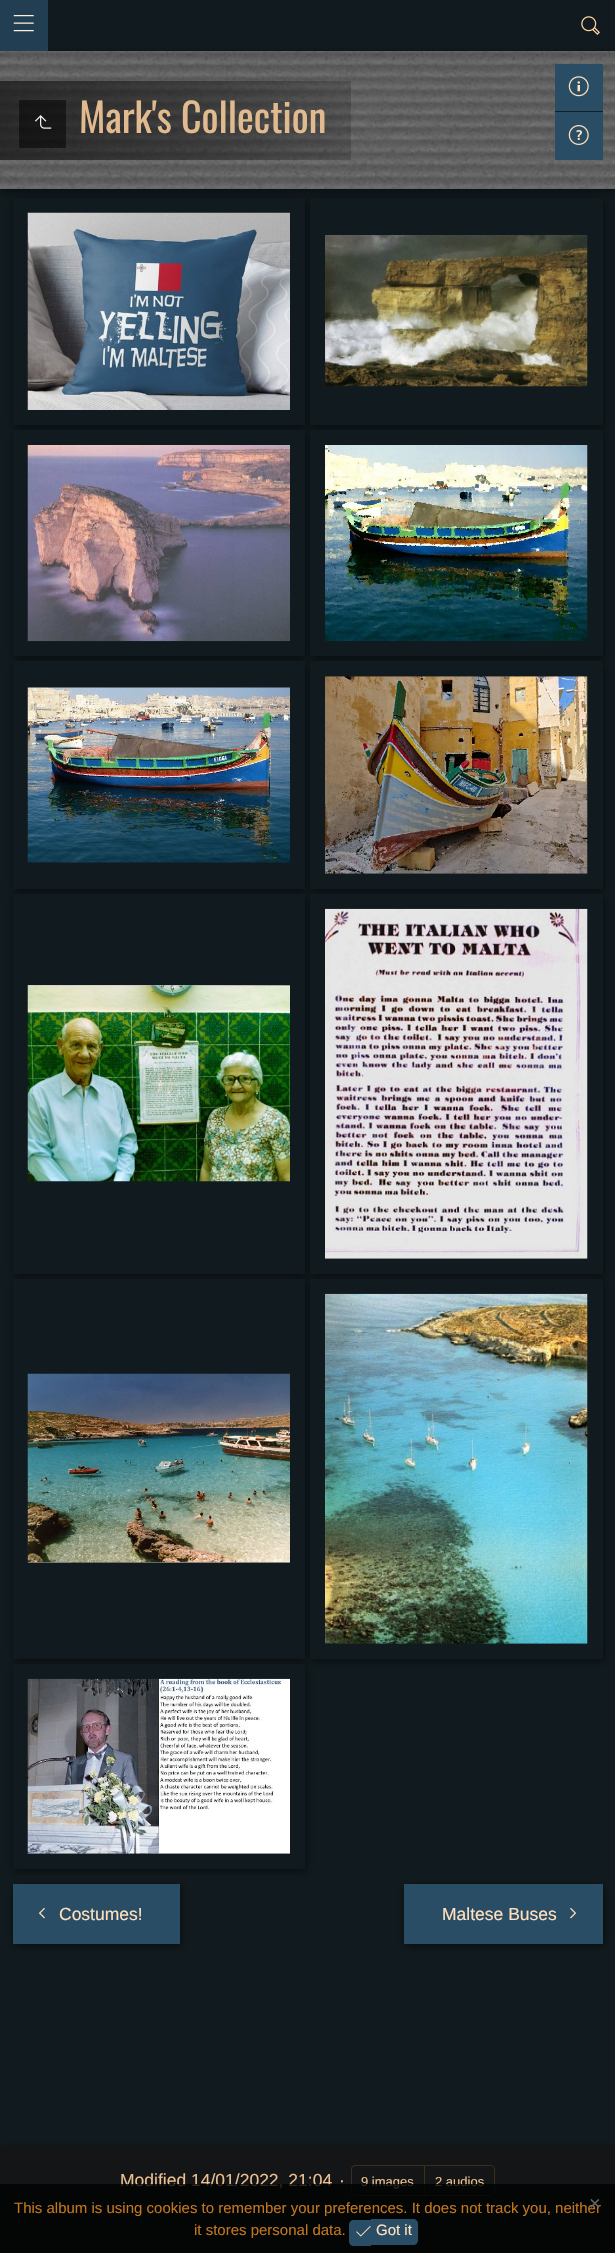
#include "include/core/SkBlurTypes.h"
#include "include/core/SkCanvas.h"
#include "include/core/SkData.h"
#include "include/core/SkFont.h"
#include "include/core/SkFontMgr.h"
#include "include/core/SkImage.h"
#include "include/core/SkMaskFilter.h"
#include "include/core/SkPaint.h"
#include "include/core/SkPathBuilder.h"
#include "include/core/SkTextBlob.h"
#include "include/effects/SkDashPathEffect.h"
#include "include/effects/SkGradientShader.h"
#include "include/utils/SkParsePath.h"

extern sk_sp<SkFontMgr> fontMgr;

void draw(SkCanvas* canvas) {
    SkPaint p;
    p.setAntiAlias(true);
    auto font = [&](const char* family, int weight, float size, bool italic = false) {
        SkFontStyle style(weight, SkFontStyle::kNormal_Width,
            italic ? SkFontStyle::kItalic_Slant : SkFontStyle::kUpright_Slant);
        SkFont result(fontMgr->matchFamilyStyle(family, style), size);
        result.setSubpixel(true);
        return result;
    };
    auto drawPhoto = [&](const char* path, float l, float t, float r, float b) {
        auto image = SkImages::DeferredFromEncodedData(SkData::MakeFromFileName(path));
        canvas->drawImageRect(image, SkRect::MakeLTRB(l, t, r, b), SkSamplingOptions());
    };
    canvas->clear(0xFF111A1E);
    p.setColor(0x82000000);
    p.setMaskFilter(SkMaskFilter::MakeBlur(kNormal_SkBlurStyle, 4));
    canvas->drawRect(SkRect::MakeLTRB(1, 54, 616, 191), p);
    p.setMaskFilter(nullptr);
    p.setColor(0xFF223E52);
    canvas->drawRect(SkRect::MakeLTRB(0, 0, 48, 51), p);
    drawPhoto("media/1.png", 13, 15, 34, 32);
    drawPhoto("media/2.png", 581, 16, 600, 35);
    p.setColor(0xFF666666);
    canvas->drawRect(SkRect::MakeLTRB(0, 51, 615, 189), p);
    drawPhoto("media/3.png", 0, 51, 615, 189);
    {
        const SkColor colors[] = {0xB3111111, 0x73111111, 0x33111111};
        const float stops[] = {0, 0.6f, 1};
        const SkPoint ends[] = {{0, 121}, {351, 121}};
        p.setShader(SkGradientShader::MakeLinear(ends, colors, stops, 3, SkTileMode::kClamp));
        p.setAlpha(255);
    }
    canvas->drawRect(SkRect::MakeLTRB(0, 81, 351, 160), p);
    p.setShader(nullptr);
    p.setColor(0x80000000);
    canvas->drawRect(SkRect::MakeLTRB(19, 100, 66, 148), p);
    drawPhoto("media/4.png", 34, 115, 52, 129);
    auto font1 = font("Oswald", 400, 40);
    p.setColor(0xFFE1BB8F);
    canvas->drawString("Mark's Collection", 79, 133, font1, p);
    p.setColor(0xFF2A4D66);
    canvas->drawRect(SkRect::MakeLTRB(555, 64, 603, 111), p);
    drawPhoto("media/5.png", 568, 76, 589, 97);
    canvas->drawRect(SkRect::MakeLTRB(555, 112, 603, 160), p);
    p.setColor(0xFF111F29);
    canvas->drawRect(SkRect::MakeLTRB(555, 111, 603, 112), p);
    drawPhoto("media/6.png", 568, 125, 589, 145);
    canvas->save();
    canvas->clipPath(SkPathBuilder(SkPathFillType::kEvenOdd).moveTo(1, 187).lineTo(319, 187).lineTo(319, 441).lineTo(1, 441).close().moveTo(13, 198).lineTo(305, 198).lineTo(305, 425).lineTo(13, 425).close().detach(), true);
    p.setColor(0x82000000);
    p.setMaskFilter(SkMaskFilter::MakeBlur(kNormal_SkBlurStyle, 4));
    canvas->drawRect(SkRect::MakeLTRB(14, 200, 306, 428), p);
    p.setMaskFilter(nullptr);
    canvas->restore();
    drawPhoto("media/7.png", 27, 212, 290, 410);
    p.setMaskFilter(SkMaskFilter::MakeBlur(kNormal_SkBlurStyle, 4));
    canvas->drawRect(SkRect::MakeLTRB(311, 200, 604, 428), p);
    p.setMaskFilter(nullptr);
    p.setColor(0xFF111A1E);
    canvas->drawRect(SkRect::MakeLTRB(310, 198, 603, 425), p);
    drawPhoto("media/8.png", 325, 235, 588, 387);
    p.setColor(0x82000000);
    p.setMaskFilter(SkMaskFilter::MakeBlur(kNormal_SkBlurStyle, 4));
    canvas->drawRect(SkRect::MakeLTRB(14, 433, 306, 659), p);
    p.setMaskFilter(nullptr);
    p.setColor(0xFF111A1E);
    canvas->drawRect(SkRect::MakeLTRB(13, 430, 305, 656), p);
    drawPhoto("media/9.png", 27, 445, 290, 642);
    p.setColor(0x82000000);
    p.setMaskFilter(SkMaskFilter::MakeBlur(kNormal_SkBlurStyle, 4));
    canvas->drawRect(SkRect::MakeLTRB(311, 433, 604, 659), p);
    p.setMaskFilter(nullptr);
    p.setColor(0xFF111A1E);
    canvas->drawRect(SkRect::MakeLTRB(310, 430, 603, 656), p);
    drawPhoto("media/10.png", 325, 445, 588, 641);
    p.setColor(0x82000000);
    p.setMaskFilter(SkMaskFilter::MakeBlur(kNormal_SkBlurStyle, 4));
    canvas->drawRect(SkRect::MakeLTRB(14, 664, 306, 891), p);
    p.setMaskFilter(nullptr);
    p.setColor(0xFF111A1E);
    canvas->drawRect(SkRect::MakeLTRB(13, 661, 305, 889), p);
    drawPhoto("media/11.png", 27, 687, 290, 863);
    p.setColor(0x82000000);
    p.setMaskFilter(SkMaskFilter::MakeBlur(kNormal_SkBlurStyle, 4));
    canvas->drawRect(SkRect::MakeLTRB(311, 664, 604, 891), p);
    p.setMaskFilter(nullptr);
    p.setColor(0xFF111A1E);
    canvas->drawRect(SkRect::MakeLTRB(310, 661, 603, 889), p);
    drawPhoto("media/12.png", 325, 676, 588, 874);
    p.setColor(0x82000000);
    p.setMaskFilter(SkMaskFilter::MakeBlur(kNormal_SkBlurStyle, 4));
    canvas->drawRect(SkRect::MakeLTRB(14, 896, 306, 1276), p);
    p.setMaskFilter(nullptr);
    p.setColor(0xFF111A1E);
    canvas->drawRect(SkRect::MakeLTRB(13, 894, 305, 1274), p);
    drawPhoto("media/13.png", 27, 985, 290, 1182);
    p.setColor(0x82000000);
    p.setMaskFilter(SkMaskFilter::MakeBlur(kNormal_SkBlurStyle, 4));
    canvas->drawRect(SkRect::MakeLTRB(311, 896, 604, 1276), p);
    p.setMaskFilter(nullptr);
    p.setColor(0xFF111A1E);
    canvas->drawRect(SkRect::MakeLTRB(310, 894, 603, 1274), p);
    drawPhoto("media/14.png", 325, 908, 588, 1259);
    p.setColor(0x82000000);
    p.setMaskFilter(SkMaskFilter::MakeBlur(kNormal_SkBlurStyle, 4));
    canvas->drawRect(SkRect::MakeLTRB(14, 1281, 306, 1661), p);
    p.setMaskFilter(nullptr);
    p.setColor(0xFF111A1E);
    canvas->drawRect(SkRect::MakeLTRB(13, 1279, 305, 1659), p);
    drawPhoto("media/15.png", 27, 1373, 290, 1563);
    p.setColor(0x82000000);
    p.setMaskFilter(SkMaskFilter::MakeBlur(kNormal_SkBlurStyle, 4));
    canvas->drawRect(SkRect::MakeLTRB(311, 1281, 604, 1661), p);
    p.setMaskFilter(nullptr);
    p.setColor(0xFF111A1E);
    canvas->drawRect(SkRect::MakeLTRB(310, 1279, 603, 1659), p);
    drawPhoto("media/16.png", 325, 1293, 588, 1644);
    p.setColor(0x82000000);
    p.setMaskFilter(SkMaskFilter::MakeBlur(kNormal_SkBlurStyle, 4));
    canvas->drawRect(SkRect::MakeLTRB(14, 1666, 306, 1871), p);
    p.setMaskFilter(nullptr);
    p.setColor(0xFF111A1E);
    canvas->drawRect(SkRect::MakeLTRB(13, 1664, 305, 1869), p);
    drawPhoto("media/17.png", 27, 1678, 290, 1854);
    p.setColor(0x82000000);
    p.setMaskFilter(SkMaskFilter::MakeBlur(kNormal_SkBlurStyle, 4));
    canvas->drawRect(SkRect::MakeLTRB(14, 1886, 181, 1946), p);
    p.setMaskFilter(nullptr);
    p.setColor(0xFF2A4D66);
    canvas->drawRect(SkRect::MakeLTRB(13, 1884, 180, 1944), p);
    drawPhoto("media/18.png", 38, 1907, 45, 1919);
    auto font2 = font("Liberation Sans", 400, 17.5f);
    p.setColor(0xFFFFE1BE);
    canvas->drawString("Costumes!", 59, 1920, font2, p);
    p.setColor(0x82000000);
    p.setMaskFilter(SkMaskFilter::MakeBlur(kNormal_SkBlurStyle, 4));
    canvas->drawRect(SkRect::MakeLTRB(405, 1886, 604, 1946), p);
    p.setMaskFilter(nullptr);
    p.setColor(0xFF2A4D66);
    canvas->drawRect(SkRect::MakeLTRB(404, 1884, 603, 1944), p);
    p.setColor(0xFFFFE1BE);
    canvas->drawString("Maltese Buses", 442, 1920, font2, p);
    drawPhoto("media/19.png", 570, 1907, 577, 1919);
    p.setColor(0x82000000);
    p.setMaskFilter(SkMaskFilter::MakeBlur(kNormal_SkBlurStyle, 4));
    canvas->drawRect(SkRect::MakeLTRB(1, 2149, 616, 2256), p);
    p.setMaskFilter(nullptr);
    p.setColor(0xFF131516);
    canvas->drawRect(SkRect::MakeLTRB(0, 2146, 615, 2253), p);
    p.setColor(0xFFECC191);
    canvas->drawString("Modified 14/01/2022, 21:04", 120, 2186, font2, p);
    canvas->drawString("·", 339, 2186, font2, p);
    p.setColor(0xFF3F2D18);
    canvas->drawPath(SkPathBuilder(SkPathFillType::kEvenOdd).moveTo(355, 2165).lineTo(424, 2165).lineTo(424, 2196).lineTo(355, 2196).cubicTo(353, 2196, 351, 2195, 351, 2192).lineTo(351, 2169).cubicTo(351, 2167, 353, 2165, 355, 2165).close().moveTo(355, 2166).lineTo(424, 2166).lineTo(424, 2195).lineTo(355, 2195).cubicTo(354, 2195, 352, 2194, 352, 2192).lineTo(352, 2169).cubicTo(352, 2167, 354, 2166, 355, 2166).close().detach(), p);
    auto font3 = font("Liberation Sans", 400, 13);
    p.setColor(0xFFECC191);
    canvas->drawString("9 images", 361, 2186, font3, p);
    p.setStyle(SkPaint::kStroke_Style);
    p.setStrokeWidth(1);
    p.setColor(0xFF3F2D18);
    canvas->drawPath(SkPathBuilder().moveTo(424.5f, 2165.5f).lineTo(491, 2165.5f).cubicTo(493, 2165.5f, 494.5f, 2167, 494.5f, 2169).lineTo(494.5f, 2192).cubicTo(494.5f, 2194, 493, 2195.5f, 491, 2195.5f).lineTo(424.5f, 2195.5f).close().detach(), p);
    p.setStyle(SkPaint::kFill_Style);
    p.setColor(0xFFECC191);
    canvas->drawString("2 audios", 435, 2186, font3, p);
    p.setColor(0xCC000000);
    canvas->drawRect(SkRect::MakeLTRB(0, 2184, 615, 2253), p);
    auto font4 = font("Liberation Sans", 400, 15);
    p.setColor(0xFFC2761E);
    canvas->drawString("This album is using cookies to remember your preferences. It does not track you, neither", 14, 2213, font4, p);
    auto font5 = font("Liberation Sans", 400, 20);
    p.setColor(0xFF666666);
    canvas->drawString("×", 589, 2210, font5, p);
    p.setColor(0xFFC2761E);
    canvas->drawString("it stores personal data.", 194, 2235, font4, p);
    p.setColor(0xFF2A4D66);
    canvas->drawPath(SkPathBuilder().moveTo(354, 2220).lineTo(371, 2220).lineTo(371, 2246).lineTo(354, 2246).cubicTo(351, 2246, 349, 2244, 349, 2241).lineTo(349, 2225).cubicTo(349, 2222, 351, 2220, 354, 2220).close().detach(), p);
    drawPhoto("media/20.png", 356, 2226, 371, 2237);
    canvas->drawPath(SkPathBuilder().moveTo(371, 2219).lineTo(413, 2219).cubicTo(416, 2219, 418, 2221, 418, 2224).lineTo(418, 2240).cubicTo(418, 2243, 416, 2245, 413, 2245).lineTo(371, 2245).close().detach(), p);
    p.setColor(0xFFFFE1BE);
    canvas->drawString("Got it", 376, 2235, font4, p);
}
